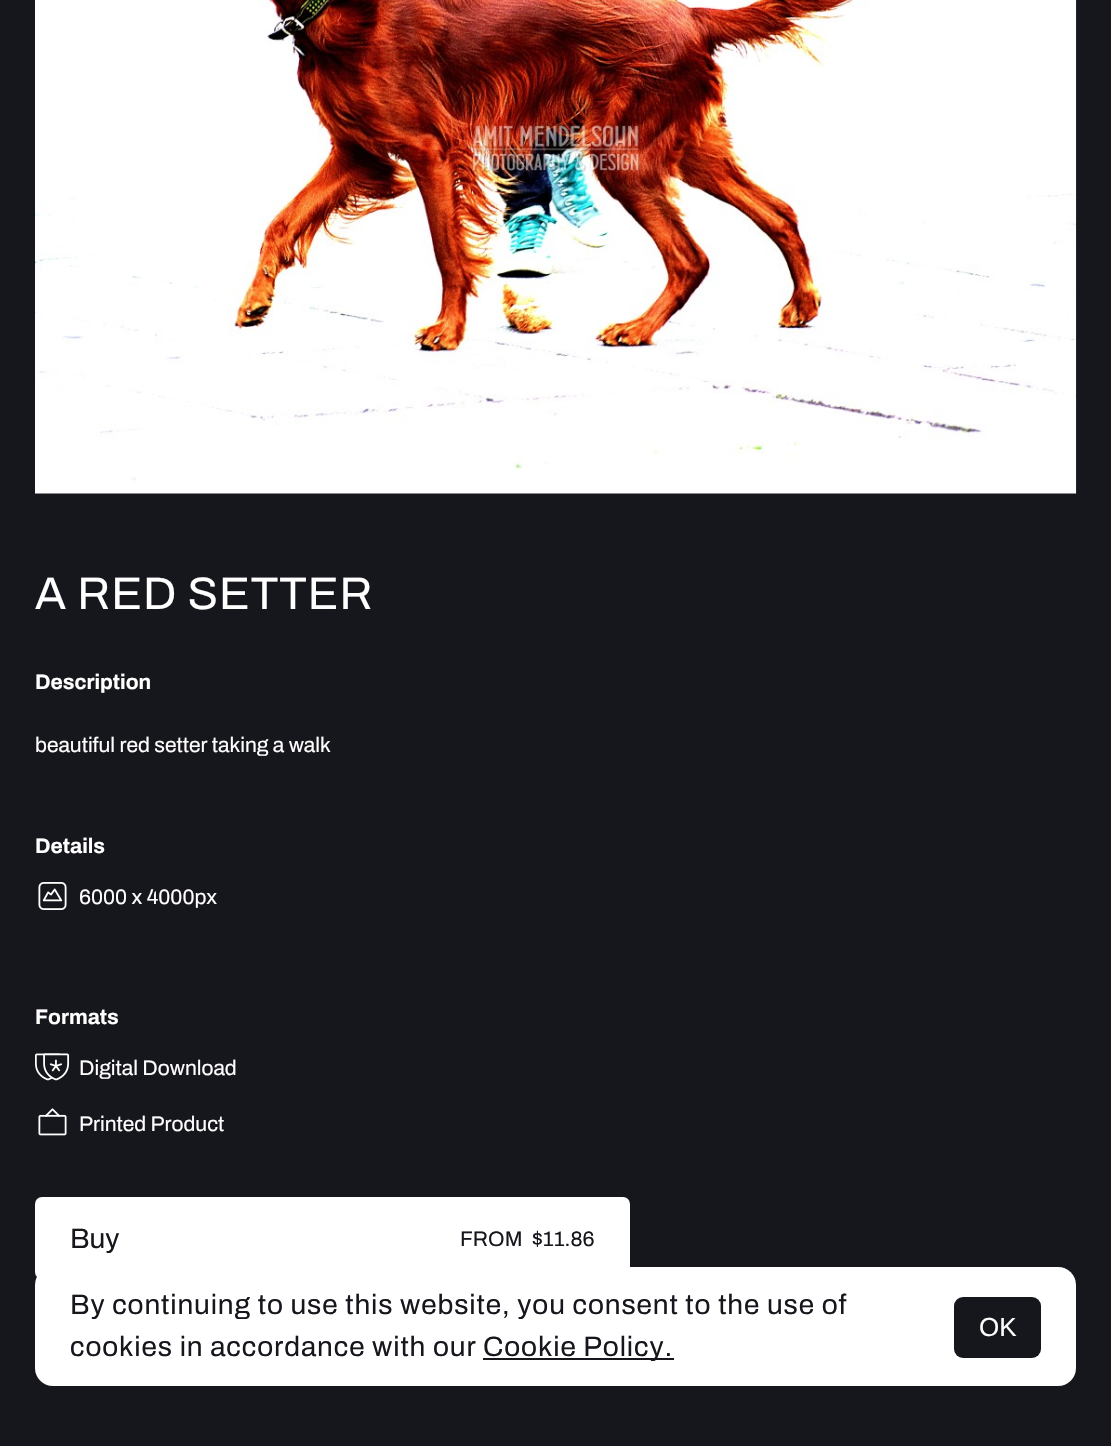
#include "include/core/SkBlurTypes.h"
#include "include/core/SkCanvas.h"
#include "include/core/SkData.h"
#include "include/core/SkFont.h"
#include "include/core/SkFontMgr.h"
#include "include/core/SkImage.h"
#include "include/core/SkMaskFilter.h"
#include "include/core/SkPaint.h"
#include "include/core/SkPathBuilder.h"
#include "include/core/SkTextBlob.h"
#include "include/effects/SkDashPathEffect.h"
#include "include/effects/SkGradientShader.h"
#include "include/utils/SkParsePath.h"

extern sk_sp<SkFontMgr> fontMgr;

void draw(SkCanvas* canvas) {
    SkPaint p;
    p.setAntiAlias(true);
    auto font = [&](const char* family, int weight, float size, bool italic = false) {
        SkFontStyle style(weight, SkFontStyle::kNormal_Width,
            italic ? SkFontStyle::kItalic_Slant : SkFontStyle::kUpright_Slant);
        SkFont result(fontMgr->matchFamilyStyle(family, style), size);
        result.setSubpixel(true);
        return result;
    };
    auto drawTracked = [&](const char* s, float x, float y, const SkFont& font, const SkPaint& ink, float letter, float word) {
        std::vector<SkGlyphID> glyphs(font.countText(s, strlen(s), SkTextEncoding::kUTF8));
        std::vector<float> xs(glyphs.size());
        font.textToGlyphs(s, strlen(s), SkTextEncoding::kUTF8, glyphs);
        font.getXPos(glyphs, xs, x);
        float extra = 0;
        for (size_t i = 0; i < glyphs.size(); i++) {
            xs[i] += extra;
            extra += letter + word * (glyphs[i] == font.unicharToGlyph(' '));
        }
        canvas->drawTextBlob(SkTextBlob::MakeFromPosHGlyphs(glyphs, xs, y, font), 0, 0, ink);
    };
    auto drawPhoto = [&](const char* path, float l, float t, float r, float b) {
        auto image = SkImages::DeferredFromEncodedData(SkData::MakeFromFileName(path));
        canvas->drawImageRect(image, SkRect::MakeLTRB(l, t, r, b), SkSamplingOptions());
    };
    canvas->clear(0xFF16161D);
    drawPhoto("media/1.png", 35, 0, 1077, 494);
    auto font1 = font("Archivo", 400, 45.5f);
    p.setColor(0xFFFFFFFF);
    drawTracked("A RED SETTER", 35, 609, font1, p, 0.88f, 0);
    auto font2 = font("Archivo", 700, 21);
    canvas->drawString("Description", 35, 689, font2, p);
    auto font3 = font("Archivo", 400, 21);
    canvas->drawString("beautiful red setter taking a walk", 35, 752, font3, p);
    canvas->drawString("Details", 35, 853, font2, p);
    drawPhoto("media/2.png", 38, 882, 67, 910);
    canvas->drawString("6000 x 4000px", 79, 904, font3, p);
    canvas->drawString("Formats", 35, 1024, font2, p);
    drawPhoto("media/3.png", 35, 1053, 70, 1081);
    canvas->drawString("Digital Download", 79, 1075, font3, p);
    drawPhoto("media/4.png", 38, 1108, 67, 1136);
    canvas->drawString("Printed Product", 79, 1131, font3, p);
    canvas->drawRoundRect(SkRect::MakeLTRB(35, 1197, 630, 1279), 7, 7, p);
    auto font4 = font("Archivo", 400, 28);
    p.setColor(0xFF16161D);
    canvas->drawString("Buy", 70, 1248, font4, p);
    canvas->drawString("FROM", 460, 1246, font3, p);
    canvas->drawString("$11.86", 532, 1246, font3, p);
    p.setColor(0xFFFFFFFF);
    canvas->drawRoundRect(SkRect::MakeLTRB(35, 1267, 1076, 1386), 18, 18, p);
    p.setColor(0xFF16161D);
    drawTracked("By continuing to use this website, you consent to the use of", 70, 1314, font4, p, 0.88f, 0);
    drawTracked("cookies in accordance with our", 70, 1356, font4, p, 0.88f, 0);
    canvas->drawRect(SkRect::MakeLTRB(483, 1358, 674, 1360), p);
    drawTracked("Cookie Policy.", 483, 1356, font4, p, 0.88f, 0);
    canvas->drawRoundRect(SkRect::MakeLTRB(954, 1297, 1041, 1358), 9, 9, p);
    auto font5 = font("Liberation Sans", 400, 26);
    p.setColor(0xFFFFFFFF);
    canvas->drawString("OK", 979, 1336, font5, p);
}
